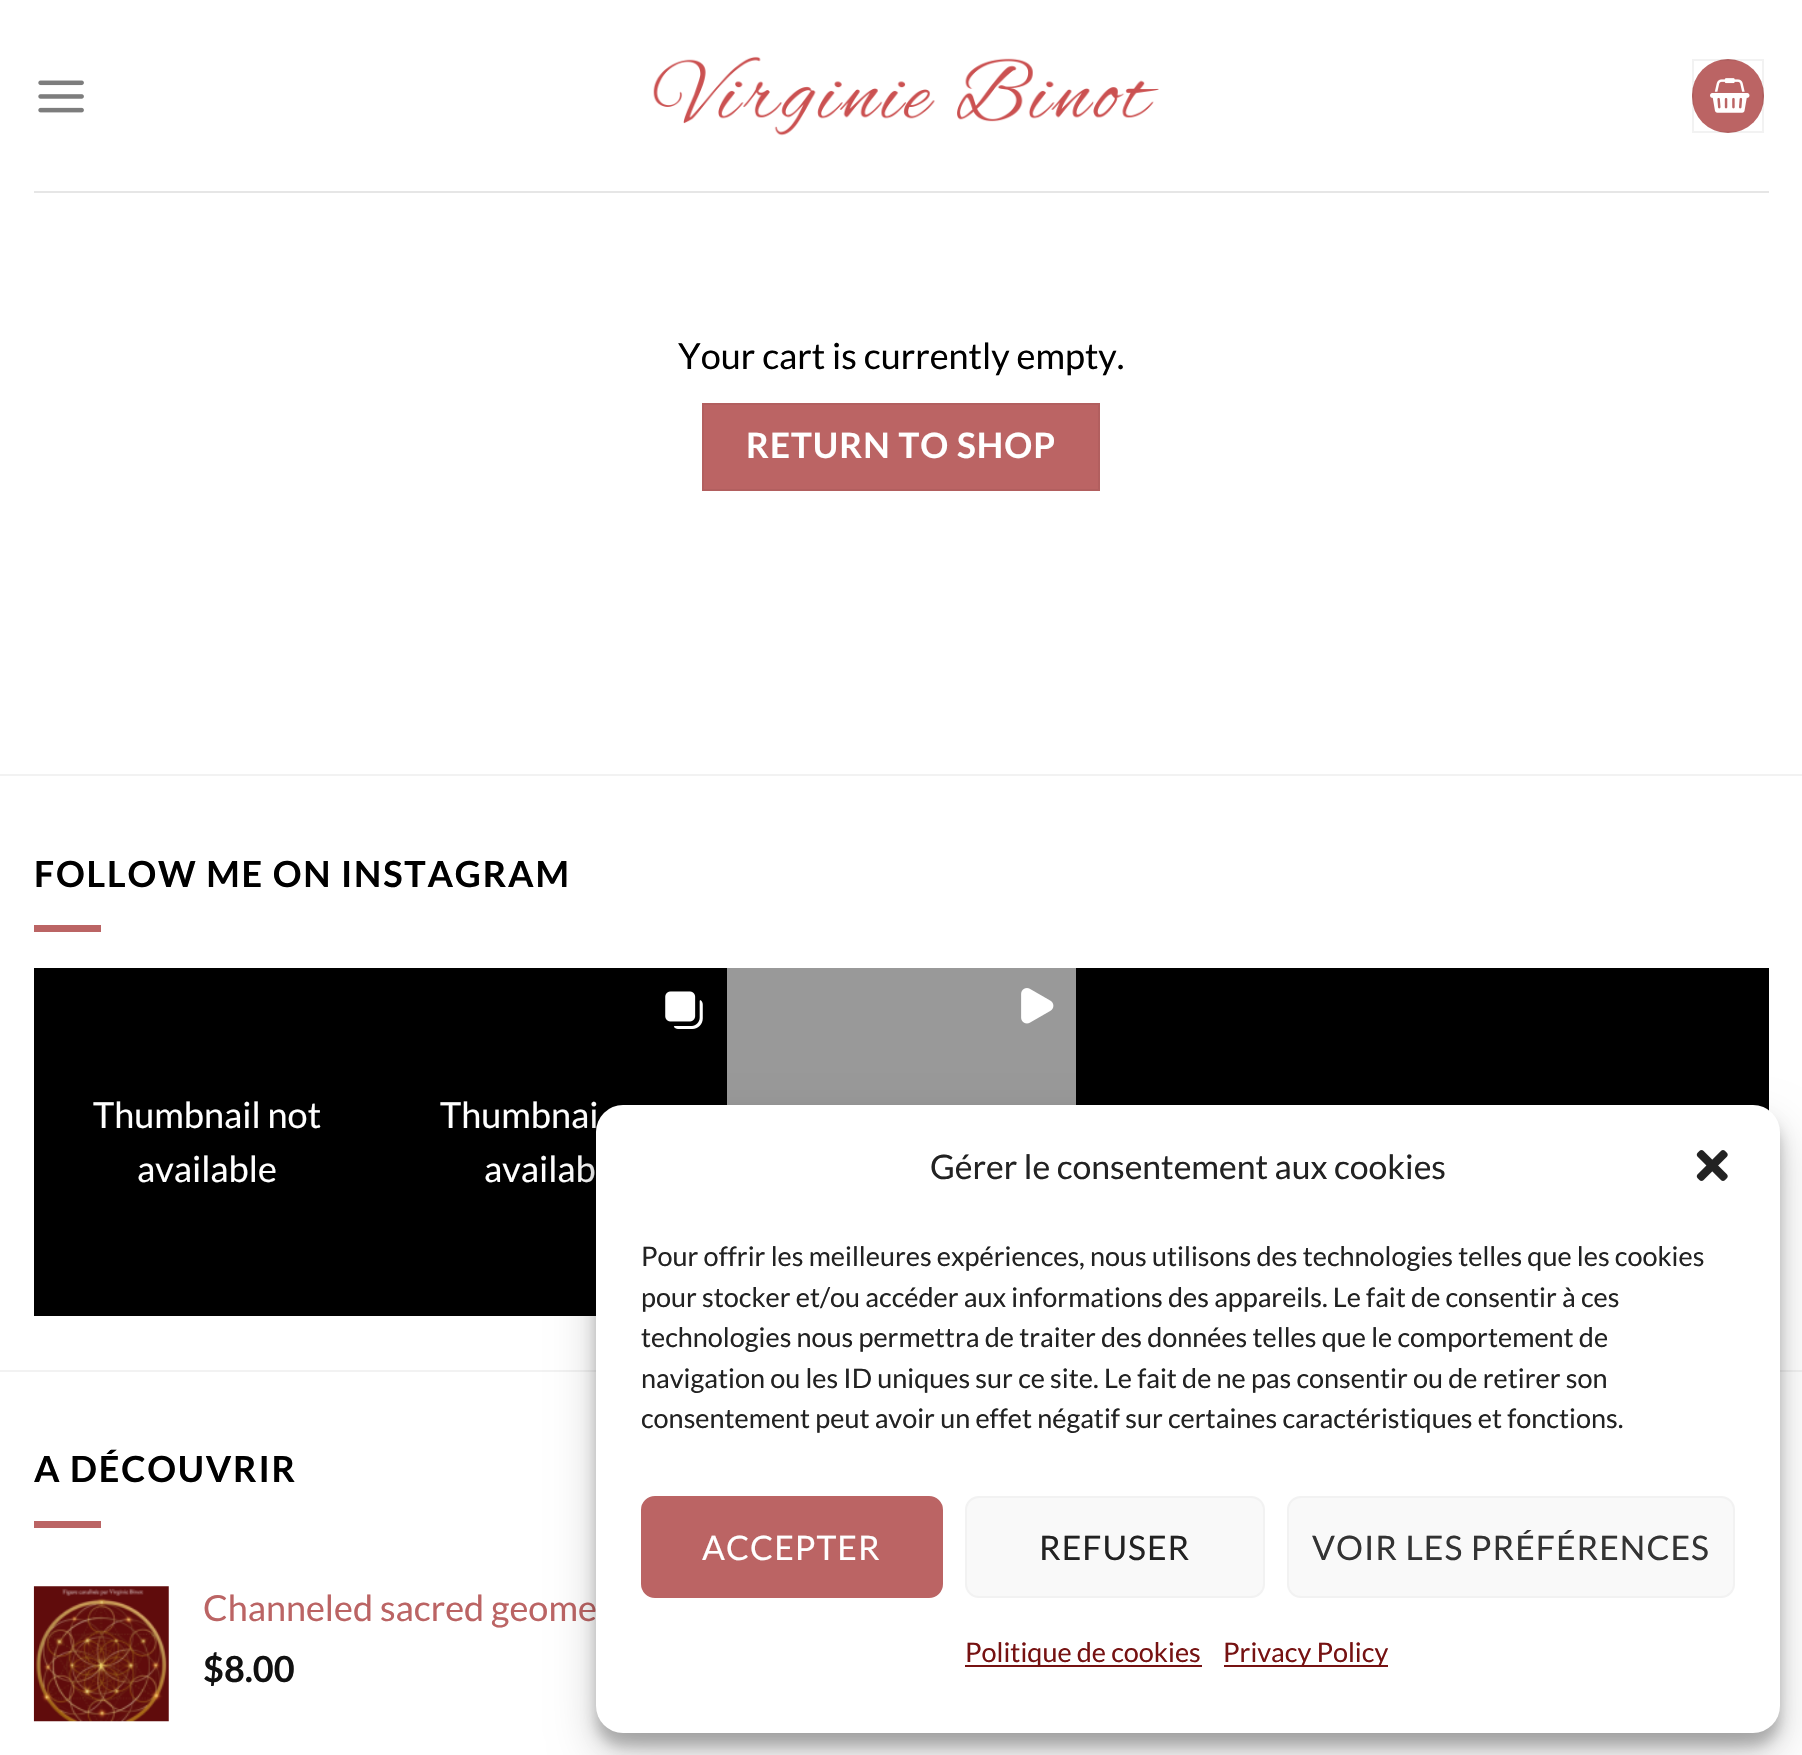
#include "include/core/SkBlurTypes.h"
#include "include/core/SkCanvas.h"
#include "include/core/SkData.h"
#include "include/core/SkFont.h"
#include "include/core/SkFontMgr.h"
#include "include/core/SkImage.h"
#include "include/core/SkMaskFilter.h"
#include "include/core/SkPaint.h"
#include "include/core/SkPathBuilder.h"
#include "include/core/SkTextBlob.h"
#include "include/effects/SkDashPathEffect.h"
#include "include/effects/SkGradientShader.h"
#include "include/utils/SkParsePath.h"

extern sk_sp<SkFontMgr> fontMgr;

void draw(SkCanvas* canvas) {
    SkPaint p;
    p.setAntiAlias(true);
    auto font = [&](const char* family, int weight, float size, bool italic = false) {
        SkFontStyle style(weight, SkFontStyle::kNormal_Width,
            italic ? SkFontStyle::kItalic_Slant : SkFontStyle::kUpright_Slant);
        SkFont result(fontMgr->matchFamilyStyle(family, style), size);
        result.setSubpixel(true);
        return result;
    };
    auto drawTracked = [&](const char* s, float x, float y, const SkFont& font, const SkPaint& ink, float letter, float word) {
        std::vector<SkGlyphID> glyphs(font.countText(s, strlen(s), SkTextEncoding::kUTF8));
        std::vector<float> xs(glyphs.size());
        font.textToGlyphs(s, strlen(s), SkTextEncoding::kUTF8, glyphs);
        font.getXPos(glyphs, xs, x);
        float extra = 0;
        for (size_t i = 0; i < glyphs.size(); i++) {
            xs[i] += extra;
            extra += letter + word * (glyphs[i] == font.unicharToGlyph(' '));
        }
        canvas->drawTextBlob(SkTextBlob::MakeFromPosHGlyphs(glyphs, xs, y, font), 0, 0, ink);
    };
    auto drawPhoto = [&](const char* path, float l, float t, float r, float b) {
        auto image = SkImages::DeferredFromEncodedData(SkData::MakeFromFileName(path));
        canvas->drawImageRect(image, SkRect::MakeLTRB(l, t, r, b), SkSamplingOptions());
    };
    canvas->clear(0xFFFFFFFF);
    drawPhoto("media/1.png", 38, 80, 84, 113);
    drawPhoto("media/2.png", 653, 56, 1159, 136);
    p.setColor(0xFFBB6464);
    canvas->drawRoundRect(SkRect::MakeLTRB(1692, 59, 1764, 133), 36, 36, p);
    p.setStyle(SkPaint::kStroke_Style);
    p.setStrokeWidth(2);
    p.setColor(0x0D000000);
    canvas->drawRect(SkRect::MakeLTRB(1693, 60, 1763, 132), p);
    drawPhoto("media/3.png", 1710, 78, 1750, 113);
    p.setStyle(SkPaint::kFill_Style);
    p.setColor(0xFFE6E6E6);
    canvas->drawRect(SkRect::MakeLTRB(34, 191, 1769, 193), p);
    auto font1 = font("Lato", 400, 36);
    p.setColor(0xFF000000);
    canvas->drawString("Your cart is currently empty.", 678, 369, font1, p);
    p.setColor(0xFFBB6464);
    canvas->drawRect(SkRect::MakeLTRB(703, 404, 1099, 490), p);
    p.setStyle(SkPaint::kStroke_Style);
    p.setColor(0xFFB25F5F);
    canvas->drawRect(SkRect::MakeLTRB(703, 404, 1099, 490), p);
    auto font2 = font("Lato", 700, 35);
    p.setStyle(SkPaint::kFill_Style);
    p.setColor(0xFFFFFFFF);
    drawTracked("RETURN TO SHOP", 746, 458, font2, p, 1, 0);
    p.setColor(0xFFF2F2F2);
    canvas->drawRect(SkRect::MakeLTRB(0, 774, 1802, 776), p);
    auto font3 = font("Lato", 700, 36);
    p.setColor(0xFF000000);
    drawTracked("FOLLOW ME ON INSTAGRAM", 34, 887, font3, p, 1.8f, 0);
    p.setColor(0xFFBB6464);
    canvas->drawRect(SkRect::MakeLTRB(34, 925, 101, 932), p);
    p.setColor(0xFF999999);
    canvas->drawRect(SkRect::MakeLTRB(727, 968, 1076, 1105), p);
    drawPhoto("media/4.png", 1021, 988, 1054, 1024);
    {
        const struct { float l, t, r, b; SkColor color; } items[] = {
            {1076, 968, 1422, 1105, 0xFF000000},
            {1422, 968, 1769, 1111, 0xFF000000},
            {34, 968, 727, 1316, 0xFF000000},
        };
        for (auto [l, t, r, b, color] : items) {
            p.setColor(color);
            canvas->drawRect(SkRect::MakeLTRB(l, t, r, b), p);
        }
    }
    p.setColor(0xFFFFFFFF);
    canvas->drawString("Thumbnail not", 93, 1128, font1, p);
    canvas->drawString("available", 137, 1182, font1, p);
    drawPhoto("media/5.png", 665, 991, 703, 1029);
    canvas->drawString("Thumbnai", 440, 1128, font1, p);
    canvas->drawString("availab", 484, 1182, font1, p);
    p.setColor(0xFFF2F2F2);
    canvas->drawRect(SkRect::MakeLTRB(0, 1370, 1802, 1372), p);
    p.setColor(0xFF000000);
    drawTracked("A DÉCOUVRIR", 34, 1482, font3, p, 1.8f, 0);
    p.setColor(0xFFBB6464);
    canvas->drawRect(SkRect::MakeLTRB(34, 1521, 101, 1528), p);
    drawPhoto("media/6.png", 33, 1586, 169, 1722);
    canvas->drawString("Channeled sacred geome", 203, 1621, font1, p);
    p.setColor(0xFF111111);
    canvas->drawString("$8.00", 203, 1682, font3, p);
    p.setColor(0x3B000000);
    p.setMaskFilter(SkMaskFilter::MakeBlur(kNormal_SkBlurStyle, 7));
    canvas->drawRoundRect(SkRect::MakeLTRB(596, 1118, 1780, 1746), 27, 27, p);
    p.setMaskFilter(nullptr);
    p.setColor(0x30000000);
    p.setMaskFilter(SkMaskFilter::MakeBlur(kNormal_SkBlurStyle, 22.5f));
    canvas->drawRoundRect(SkRect::MakeLTRB(596, 1127, 1780, 1755), 27, 27, p);
    p.setMaskFilter(nullptr);
    p.setColor(0xFFFFFFFF);
    canvas->drawRoundRect(SkRect::MakeLTRB(596, 1105, 1780, 1733), 27, 27, p);
    auto font4 = font("Lato", 400, 33.75f);
    p.setColor(0xFF222222);
    canvas->drawString("Gérer le consentement aux cookies", 930, 1179, font4, p);
    drawPhoto("media/7.png", 1696, 1150, 1728, 1181);
    auto font5 = font("Lato", 400, 27);
    {
        const struct { const char* s; float x, y; } items[] = {
            {"Pour offrir les meilleures expériences, nous utilisons des technologies telles que les cookies", 641, 1266},
            {"pour stocker et/ou accéder aux informations des appareils. Le fait de consentir à ces", 641, 1307},
            {"technologies nous permettra de traiter des données telles que le comportement de", 641, 1347},
            {"navigation ou les ID uniques sur ce site. Le fait de ne pas consentir ou de retirer son", 641, 1388},
            {"consentement peut avoir un effet négatif sur certaines caractéristiques et fonctions.", 641, 1428},
        };
        for (auto [s, x, y] : items) {
            canvas->drawString(s, x, y, font5, p);
        }
    }
    p.setColor(0xFFBB6464);
    canvas->drawRoundRect(SkRect::MakeLTRB(642, 1497, 942, 1597), 13, 13, p);
    p.setStyle(SkPaint::kStroke_Style);
    canvas->drawRoundRect(SkRect::MakeLTRB(642, 1497, 942, 1597), 13, 13, p);
    p.setStyle(SkPaint::kFill_Style);
    p.setColor(0xFFFFFFFF);
    drawTracked("ACCEPTER", 702, 1560, font4, p, 1, 0);
    p.setColor(0xFFF9F9F9);
    canvas->drawRoundRect(SkRect::MakeLTRB(966, 1497, 1264, 1597), 13, 13, p);
    p.setStyle(SkPaint::kStroke_Style);
    p.setColor(0xFFF2F2F2);
    canvas->drawRoundRect(SkRect::MakeLTRB(966, 1497, 1264, 1597), 13, 13, p);
    p.setStyle(SkPaint::kFill_Style);
    p.setColor(0xFF222222);
    drawTracked("REFUSER", 1039, 1560, font4, p, 1, 0);
    p.setColor(0xFFF9F9F9);
    canvas->drawRoundRect(SkRect::MakeLTRB(1288, 1497, 1734, 1597), 13, 13, p);
    p.setStyle(SkPaint::kStroke_Style);
    p.setColor(0xFFF2F2F2);
    canvas->drawRoundRect(SkRect::MakeLTRB(1288, 1497, 1734, 1597), 13, 13, p);
    p.setStyle(SkPaint::kFill_Style);
    p.setColor(0xFF333333);
    drawTracked("VOIR LES PRÉFÉRENCES", 1312, 1560, font4, p, 1, 0);
    p.setColor(0xFF761212);
    canvas->drawRect(SkRect::MakeLTRB(965, 1665, 1202, 1667), p);
    canvas->drawString("Politique de cookies", 965, 1662, font5, p);
    canvas->drawRect(SkRect::MakeLTRB(1224, 1665, 1388, 1667), p);
    canvas->drawString("Privacy Policy", 1223, 1662, font5, p);
}
